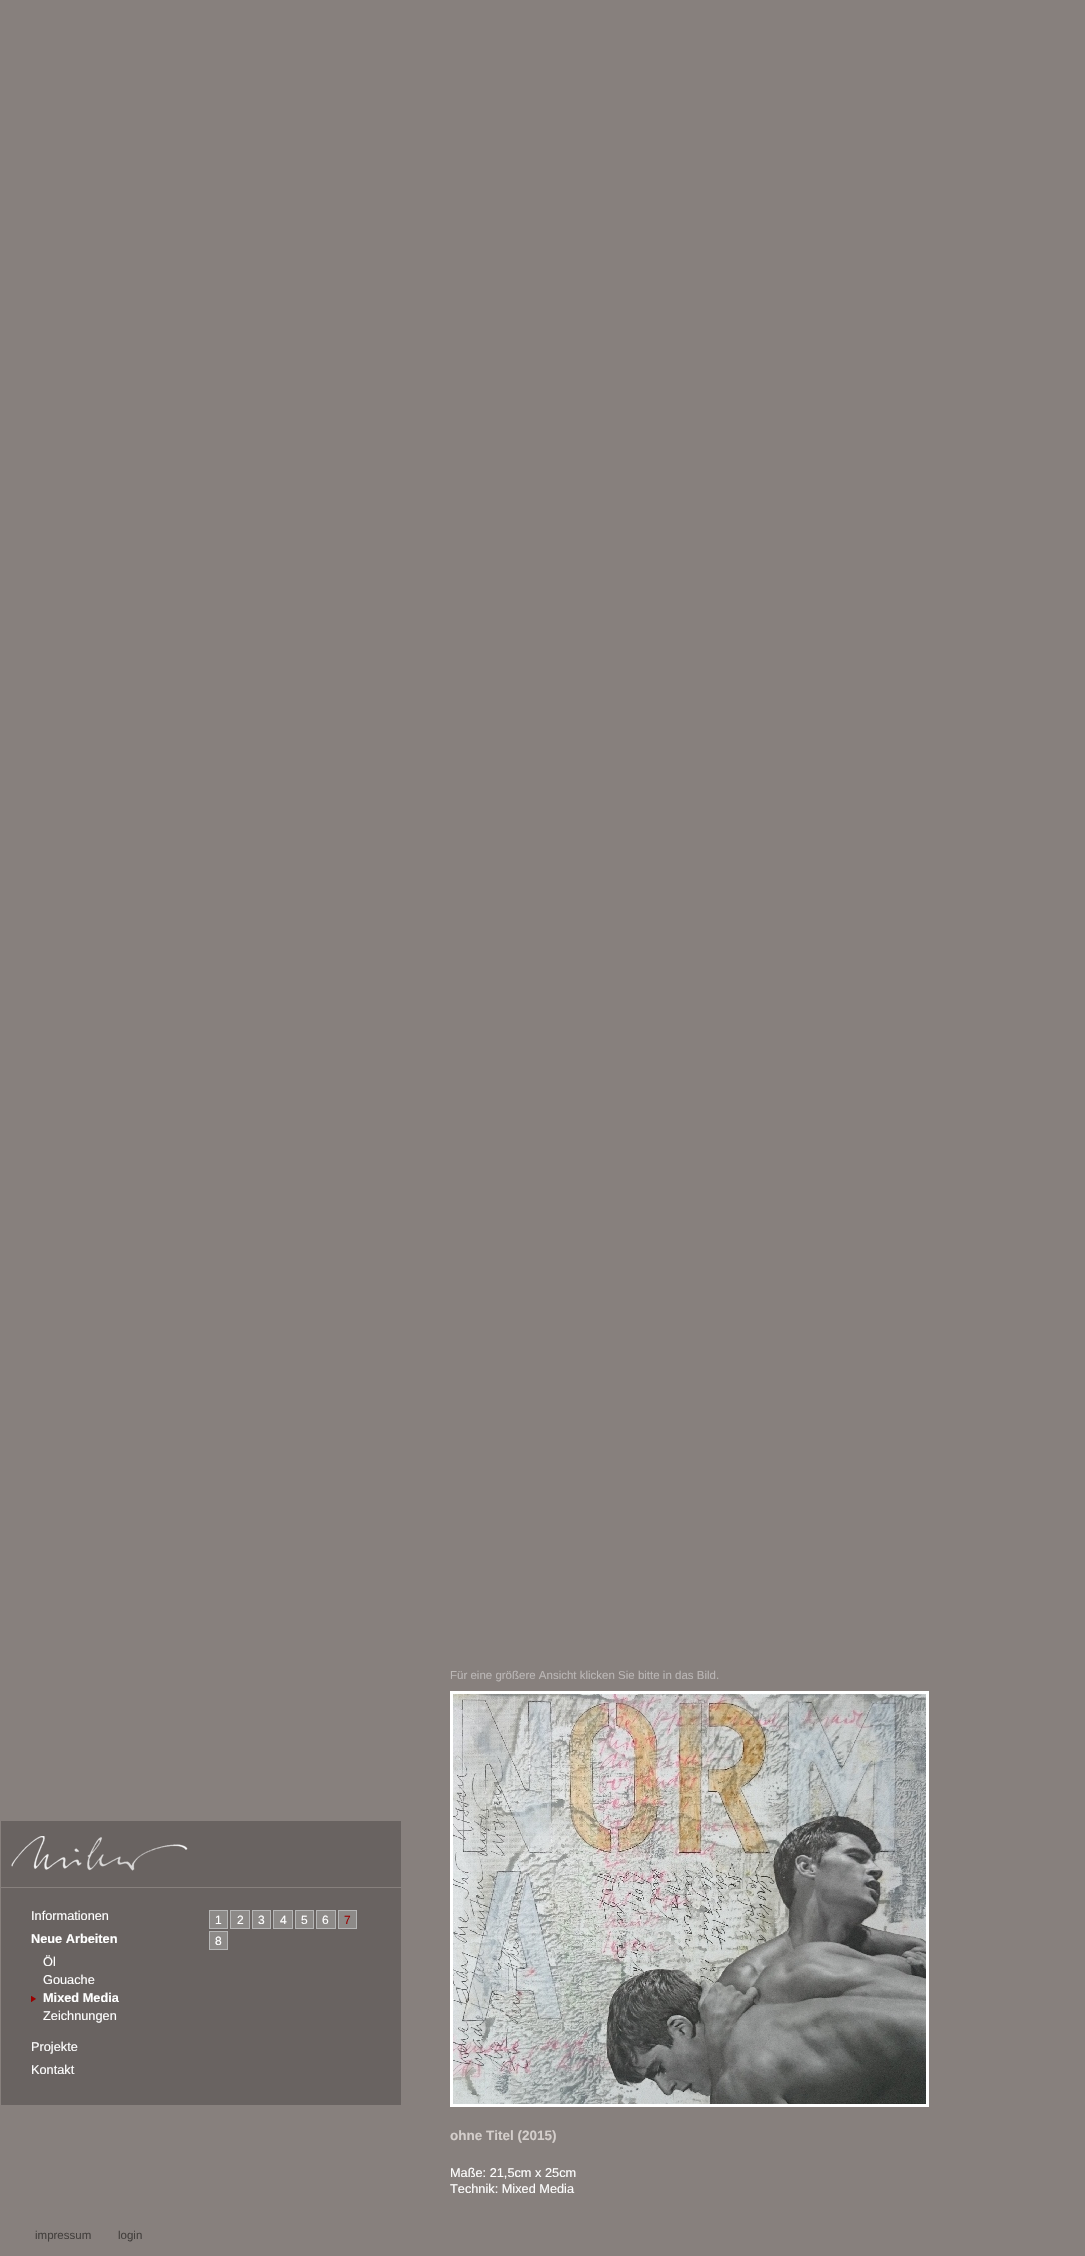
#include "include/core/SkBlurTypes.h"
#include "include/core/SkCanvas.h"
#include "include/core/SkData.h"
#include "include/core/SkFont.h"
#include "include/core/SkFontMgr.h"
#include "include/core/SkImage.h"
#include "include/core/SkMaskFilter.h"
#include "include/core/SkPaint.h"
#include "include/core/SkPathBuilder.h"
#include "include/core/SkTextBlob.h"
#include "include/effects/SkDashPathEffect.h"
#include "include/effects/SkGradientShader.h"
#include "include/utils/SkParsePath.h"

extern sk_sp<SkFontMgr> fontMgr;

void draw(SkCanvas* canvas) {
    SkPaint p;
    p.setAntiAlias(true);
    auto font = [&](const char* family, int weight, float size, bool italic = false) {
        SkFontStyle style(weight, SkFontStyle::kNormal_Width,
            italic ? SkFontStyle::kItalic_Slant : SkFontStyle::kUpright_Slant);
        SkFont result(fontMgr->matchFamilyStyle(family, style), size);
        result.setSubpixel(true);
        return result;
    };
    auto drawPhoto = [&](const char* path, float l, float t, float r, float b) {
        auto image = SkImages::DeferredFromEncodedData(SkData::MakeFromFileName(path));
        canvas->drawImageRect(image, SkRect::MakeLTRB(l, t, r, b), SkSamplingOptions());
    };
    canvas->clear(0xFF87807D);
    p.setColor(0xFF696361);
    canvas->drawRect(SkRect::MakeLTRB(1, 1821, 401, 2105), p);
    p.setColor(0xFF87807D);
    canvas->drawRect(SkRect::MakeLTRB(1, 1887, 401, 1888), p);
    drawPhoto("media/1.png", 11, 1836, 188, 1871);
    auto font1 = font("Liberation Sans", 400, 12.75f);
    p.setColor(0xFFFFFFFF);
    canvas->drawString("Informationen", 31, 1920, font1, p);
    auto font2 = font("Liberation Sans", 700, 12.75f);
    canvas->drawString("Neue Arbeiten", 31, 1943, font2, p);
    canvas->drawString("Öl", 43, 1966, font1, p);
    canvas->drawString("Gouache", 43, 1984, font1, p);
    drawPhoto("media/2.png", 31, 1996, 36, 2002);
    canvas->drawString("Mixed Media", 43, 2002, font2, p);
    {
        const struct { const char* s; float x, y; } items[] = {
            {"Zeichnungen", 43, 2020},
            {"Projekte", 31, 2051},
            {"Kontakt", 31, 2074},
        };
        for (auto [s, x, y] : items) {
            canvas->drawString(s, x, y, font1, p);
        }
    }
    p.setColor(0xFF8D8A88);
    canvas->drawRect(SkRect::MakeLTRB(209.5f, 1910.5f, 227.5f, 1928.5f), p);
    p.setStyle(SkPaint::kStroke_Style);
    p.setStrokeWidth(1);
    p.setColor(0xFFB6B6B6);
    canvas->drawRect(SkRect::MakeLTRB(209.5f, 1910.5f, 227.5f, 1928.5f), p);
    auto font3 = font("Liberation Sans", 400, 12);
    p.setStyle(SkPaint::kFill_Style);
    p.setColor(0xFFFFFFFF);
    canvas->drawString("1", 215, 1924, font3, p);
    p.setColor(0xFF8D8A88);
    canvas->drawRect(SkRect::MakeLTRB(230.5f, 1910.5f, 249.5f, 1928.5f), p);
    p.setStyle(SkPaint::kStroke_Style);
    p.setColor(0xFFB6B6B6);
    canvas->drawRect(SkRect::MakeLTRB(230.5f, 1910.5f, 249.5f, 1928.5f), p);
    p.setStyle(SkPaint::kFill_Style);
    p.setColor(0xFFFFFFFF);
    canvas->drawString("2", 237, 1924, font3, p);
    p.setColor(0xFF8D8A88);
    canvas->drawRect(SkRect::MakeLTRB(252.5f, 1910.5f, 270.5f, 1928.5f), p);
    p.setStyle(SkPaint::kStroke_Style);
    p.setColor(0xFFB6B6B6);
    canvas->drawRect(SkRect::MakeLTRB(252.5f, 1910.5f, 270.5f, 1928.5f), p);
    p.setStyle(SkPaint::kFill_Style);
    p.setColor(0xFFFFFFFF);
    canvas->drawString("3", 258, 1924, font3, p);
    p.setColor(0xFF8D8A88);
    canvas->drawRect(SkRect::MakeLTRB(273.5f, 1910.5f, 292.5f, 1928.5f), p);
    p.setStyle(SkPaint::kStroke_Style);
    p.setColor(0xFFB6B6B6);
    canvas->drawRect(SkRect::MakeLTRB(273.5f, 1910.5f, 292.5f, 1928.5f), p);
    p.setStyle(SkPaint::kFill_Style);
    p.setColor(0xFFFFFFFF);
    canvas->drawString("4", 280, 1924, font3, p);
    p.setColor(0xFF8D8A88);
    canvas->drawRect(SkRect::MakeLTRB(295.5f, 1910.5f, 313.5f, 1928.5f), p);
    p.setStyle(SkPaint::kStroke_Style);
    p.setColor(0xFFB6B6B6);
    canvas->drawRect(SkRect::MakeLTRB(295.5f, 1910.5f, 313.5f, 1928.5f), p);
    p.setStyle(SkPaint::kFill_Style);
    p.setColor(0xFFFFFFFF);
    canvas->drawString("5", 301, 1924, font3, p);
    p.setColor(0xFF8D8A88);
    canvas->drawRect(SkRect::MakeLTRB(316.5f, 1910.5f, 335.5f, 1928.5f), p);
    p.setStyle(SkPaint::kStroke_Style);
    p.setColor(0xFFB6B6B6);
    canvas->drawRect(SkRect::MakeLTRB(316.5f, 1910.5f, 335.5f, 1928.5f), p);
    p.setStyle(SkPaint::kFill_Style);
    p.setColor(0xFFFFFFFF);
    canvas->drawString("6", 322, 1924, font3, p);
    p.setColor(0xFF8D8A88);
    canvas->drawRect(SkRect::MakeLTRB(338.5f, 1910.5f, 356.5f, 1928.5f), p);
    p.setStyle(SkPaint::kStroke_Style);
    p.setColor(0xFFB6B6B6);
    canvas->drawRect(SkRect::MakeLTRB(338.5f, 1910.5f, 356.5f, 1928.5f), p);
    p.setStyle(SkPaint::kFill_Style);
    p.setColor(0xFF990000);
    canvas->drawString("7", 344, 1924, font3, p);
    p.setColor(0xFF8D8A88);
    canvas->drawRect(SkRect::MakeLTRB(209.5f, 1931.5f, 227.5f, 1949.5f), p);
    p.setStyle(SkPaint::kStroke_Style);
    p.setColor(0xFFB6B6B6);
    canvas->drawRect(SkRect::MakeLTRB(209.5f, 1931.5f, 227.5f, 1949.5f), p);
    p.setStyle(SkPaint::kFill_Style);
    p.setColor(0xFFFFFFFF);
    canvas->drawString("8", 215, 1945, font3, p);
    auto font4 = font("Liberation Sans", 400, 11.5f);
    p.setColor(0xFFBBB7B6);
    canvas->drawString("Für eine größere Ansicht klicken Sie bitte in das Bild.", 450, 1679, font4, p);
    p.setStyle(SkPaint::kStroke_Style);
    p.setStrokeWidth(3);
    p.setColor(0xFFFFFFFF);
    canvas->drawRect(SkRect::MakeLTRB(451.5f, 1692.5f, 927.5f, 2105.5f), p);
    drawPhoto("media/3.png", 453, 1694, 926, 2104);
    auto font5 = font("Liberation Sans", 700, 13.5f);
    p.setStyle(SkPaint::kFill_Style);
    p.setColor(0xFFD4CECB);
    canvas->drawString("ohne Titel (2015)", 450, 2140, font5, p);
    p.setColor(0xFFFFFFFF);
    canvas->drawString("Maße: 21,5cm x 25cm", 450, 2177, font1, p);
    canvas->drawString("Technik: Mixed Media", 450, 2193, font1, p);
    p.setColor(0xFF43403D);
    canvas->drawString("impressum", 35, 2239, font4, p);
    canvas->drawString("login", 118, 2239, font4, p);
}
